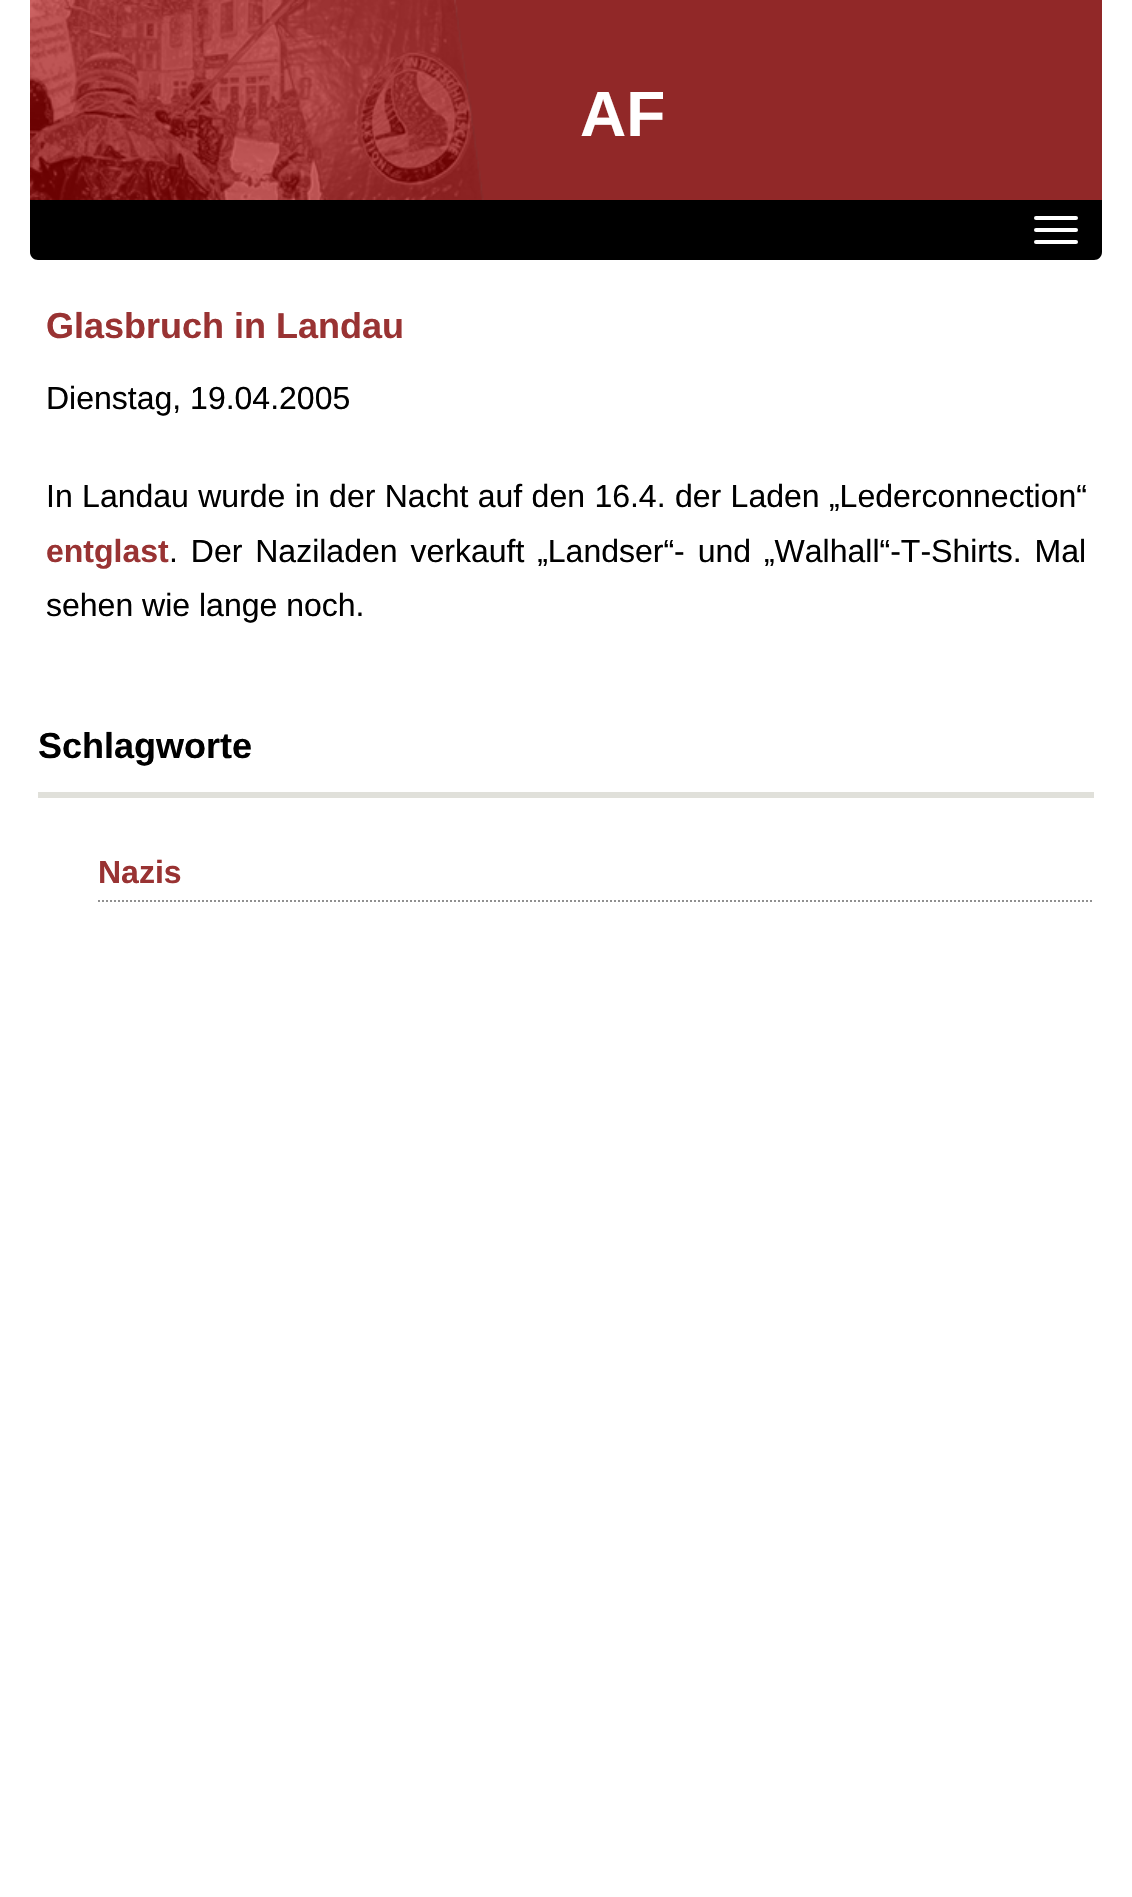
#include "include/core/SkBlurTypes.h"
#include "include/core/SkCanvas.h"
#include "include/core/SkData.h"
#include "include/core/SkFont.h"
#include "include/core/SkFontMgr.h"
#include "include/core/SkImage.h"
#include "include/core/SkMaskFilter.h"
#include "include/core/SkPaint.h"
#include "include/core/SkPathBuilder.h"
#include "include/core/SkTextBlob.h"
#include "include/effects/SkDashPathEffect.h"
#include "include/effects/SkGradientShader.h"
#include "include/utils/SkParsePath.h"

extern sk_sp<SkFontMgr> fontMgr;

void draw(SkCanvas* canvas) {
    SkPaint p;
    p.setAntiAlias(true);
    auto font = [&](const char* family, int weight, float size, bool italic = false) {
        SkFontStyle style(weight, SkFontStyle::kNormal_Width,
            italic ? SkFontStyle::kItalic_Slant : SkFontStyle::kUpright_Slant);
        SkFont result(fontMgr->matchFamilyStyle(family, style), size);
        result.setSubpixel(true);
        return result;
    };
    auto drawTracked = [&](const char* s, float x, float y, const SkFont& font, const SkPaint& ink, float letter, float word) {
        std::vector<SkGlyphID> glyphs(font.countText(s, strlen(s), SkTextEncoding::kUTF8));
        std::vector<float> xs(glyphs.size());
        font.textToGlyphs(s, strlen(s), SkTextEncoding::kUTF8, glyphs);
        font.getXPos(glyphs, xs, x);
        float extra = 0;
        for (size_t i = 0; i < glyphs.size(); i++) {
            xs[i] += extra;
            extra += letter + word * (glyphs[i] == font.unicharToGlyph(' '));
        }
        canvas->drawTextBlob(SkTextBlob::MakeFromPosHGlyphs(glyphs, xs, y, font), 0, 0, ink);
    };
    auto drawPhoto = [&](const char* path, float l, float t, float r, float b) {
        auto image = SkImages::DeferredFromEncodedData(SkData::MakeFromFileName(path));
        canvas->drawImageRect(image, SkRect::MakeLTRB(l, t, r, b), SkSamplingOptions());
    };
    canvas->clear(0xFFFFFFFF);
    p.setColor(0xFF912828);
    canvas->drawRect(SkRect::MakeLTRB(484, 0, 1102, 200), p);
    drawPhoto("media/1.png", 30, 0, 484, 200);
    auto font1 = font("Liberation Sans", 700, 64);
    p.setColor(0xFFFFFFFF);
    canvas->drawString("AF", 580, 136, font1, p);
    p.setColor(0xFF000000);
    canvas->drawPath(SkPathBuilder().moveTo(30, 200).lineTo(1102, 200).lineTo(1102, 252).cubicTo(1102, 256.5f, 1098.5f, 260, 1094, 260).lineTo(38, 260).cubicTo(33.5f, 260, 30, 256.5f, 30, 252).close().detach(), p);
    p.setColor(0xFFFFFFFF);
    canvas->drawRoundRect(SkRect::MakeLTRB(1034, 216, 1078, 220), 2, 2, p);
    canvas->drawRoundRect(SkRect::MakeLTRB(1034, 228, 1078, 232), 2, 2, p);
    canvas->drawRoundRect(SkRect::MakeLTRB(1034, 240, 1078, 244), 2, 2, p);
    auto font2 = font("Liberation Sans", 700, 36);
    p.setColor(0xFF993333);
    canvas->drawString("Glasbruch in Landau", 46, 338, font2, p);
    auto font3 = font("Liberation Sans", 400, 32);
    p.setColor(0xFF000000);
    canvas->drawString("Dienstag, 19.04.2005", 46, 409, font3, p);
    drawTracked("In Landau wurde in der Nacht auf den 16.4. der Laden „Lederconnection“", 46, 507, font3, p, 0, 0.5f);
    auto font4 = font("Liberation Sans", 700, 32);
    p.setColor(0xFF993333);
    canvas->drawString("entglast", 46, 562, font4, p);
    p.setColor(0xFF000000);
    drawTracked(". Der Naziladen verkauft „Landser“- und „Walhall“-T-Shirts. Mal", 169, 562, font3, p, 0, 4);
    canvas->drawString("sehen wie lange noch.", 46, 616, font3, p);
    p.setColor(0xFFE0E0DA);
    canvas->drawRect(SkRect::MakeLTRB(38, 792, 1094, 798), p);
    p.setColor(0xFF000000);
    canvas->drawString("Schlagworte", 38, 758, font2, p);
    p.setStyle(SkPaint::kStroke_Style);
    p.setStrokeWidth(2);
    p.setColor(0xFF909090);
    p.setPathEffect(SkDashPathEffect::Make({{2, 2}}, 0));
    canvas->drawPath(SkPathBuilder().moveTo(98, 901).lineTo(1094, 901).detach(), p);
    p.setPathEffect(nullptr);
    p.setStyle(SkPaint::kFill_Style);
    p.setColor(0xFF993333);
    canvas->drawString("Nazis", 98, 883, font4, p);
}
